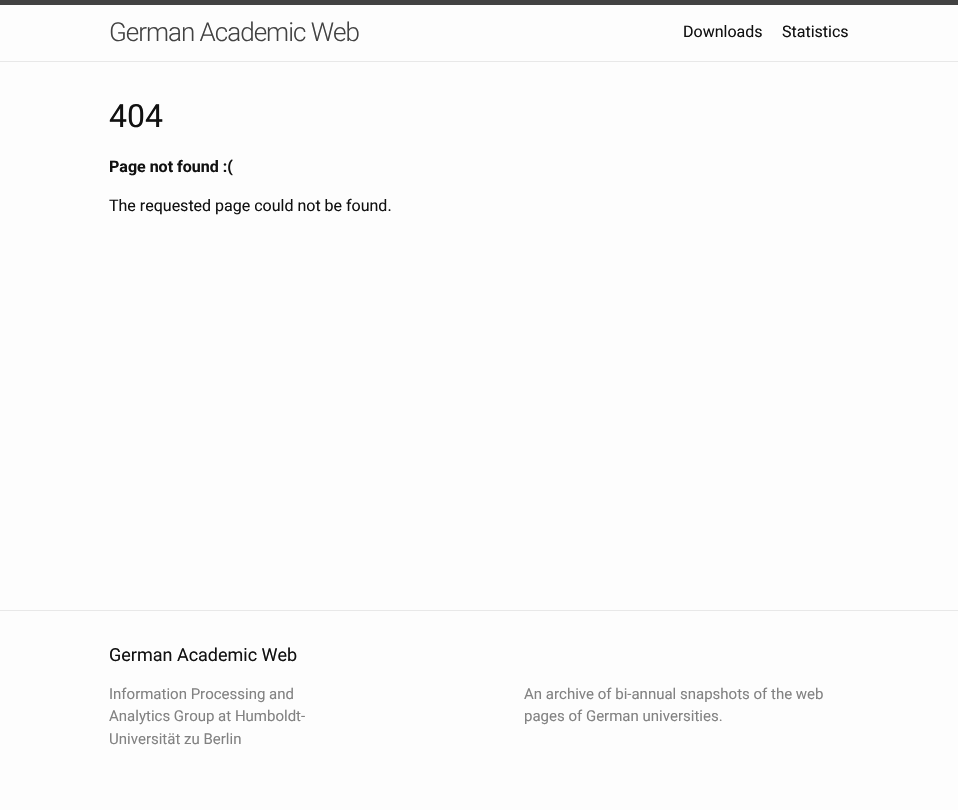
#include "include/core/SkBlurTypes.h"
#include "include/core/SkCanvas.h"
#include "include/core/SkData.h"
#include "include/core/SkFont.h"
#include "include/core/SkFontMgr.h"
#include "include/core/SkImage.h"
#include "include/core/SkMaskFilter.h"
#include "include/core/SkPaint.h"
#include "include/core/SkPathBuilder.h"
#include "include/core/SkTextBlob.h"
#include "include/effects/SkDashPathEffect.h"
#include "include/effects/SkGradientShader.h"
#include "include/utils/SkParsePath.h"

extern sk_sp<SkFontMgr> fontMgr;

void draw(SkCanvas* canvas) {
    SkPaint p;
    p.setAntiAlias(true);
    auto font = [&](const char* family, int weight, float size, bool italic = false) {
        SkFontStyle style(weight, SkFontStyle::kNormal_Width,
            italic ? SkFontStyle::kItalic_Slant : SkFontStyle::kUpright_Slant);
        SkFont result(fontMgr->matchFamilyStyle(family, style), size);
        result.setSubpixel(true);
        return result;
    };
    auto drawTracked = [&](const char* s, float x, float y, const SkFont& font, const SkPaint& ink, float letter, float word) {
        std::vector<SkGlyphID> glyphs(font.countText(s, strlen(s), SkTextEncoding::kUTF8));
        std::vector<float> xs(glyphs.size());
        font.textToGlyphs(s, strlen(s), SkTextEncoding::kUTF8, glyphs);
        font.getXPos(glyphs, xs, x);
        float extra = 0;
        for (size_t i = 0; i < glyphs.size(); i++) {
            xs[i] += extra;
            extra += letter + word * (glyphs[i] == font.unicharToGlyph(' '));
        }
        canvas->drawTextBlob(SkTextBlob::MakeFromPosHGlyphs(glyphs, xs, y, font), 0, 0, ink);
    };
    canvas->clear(0xFFFDFDFD);
    p.setColor(0xFF424242);
    canvas->drawRect(SkRect::MakeLTRB(0, 0, 958, 5), p);
    p.setColor(0xFFE8E8E8);
    canvas->drawRect(SkRect::MakeLTRB(0, 61, 958, 62), p);
    auto font1 = font("Roboto", 300, 26);
    p.setColor(0xFF424242);
    drawTracked("German Academic Web", 109, 41, font1, p, -1, 0);
    auto font2 = font("Roboto", 400, 16);
    p.setColor(0xFF111111);
    canvas->drawString("Downloads", 683, 37, font2, p);
    canvas->drawString("Statistics", 782, 37, font2, p);
    auto font3 = font("Roboto", 400, 32);
    canvas->drawString("404", 109, 127, font3, p);
    auto font4 = font("Roboto", 700, 16);
    canvas->drawString("Page not found :(", 109, 172, font4, p);
    canvas->drawString("The requested page could not be found.", 109, 211, font2, p);
    p.setColor(0xFFE8E8E8);
    canvas->drawRect(SkRect::MakeLTRB(0, 610, 958, 611), p);
    auto font5 = font("Roboto", 400, 18);
    p.setColor(0xFF111111);
    canvas->drawString("German Academic Web", 109, 661, font5, p);
    auto font6 = font("Roboto", 400, 15);
    p.setColor(0xFF828282);
    {
        const struct { const char* s; float x, y; } items[] = {
            {"Information Processing and", 109, 699},
            {"Analytics Group at Humboldt-", 109, 721},
            {"Universität zu Berlin", 109, 744},
            {"An archive of bi-annual snapshots of the web", 524, 699},
            {"pages of German universities.", 524, 721},
        };
        for (auto [s, x, y] : items) {
            canvas->drawString(s, x, y, font6, p);
        }
    }
}
